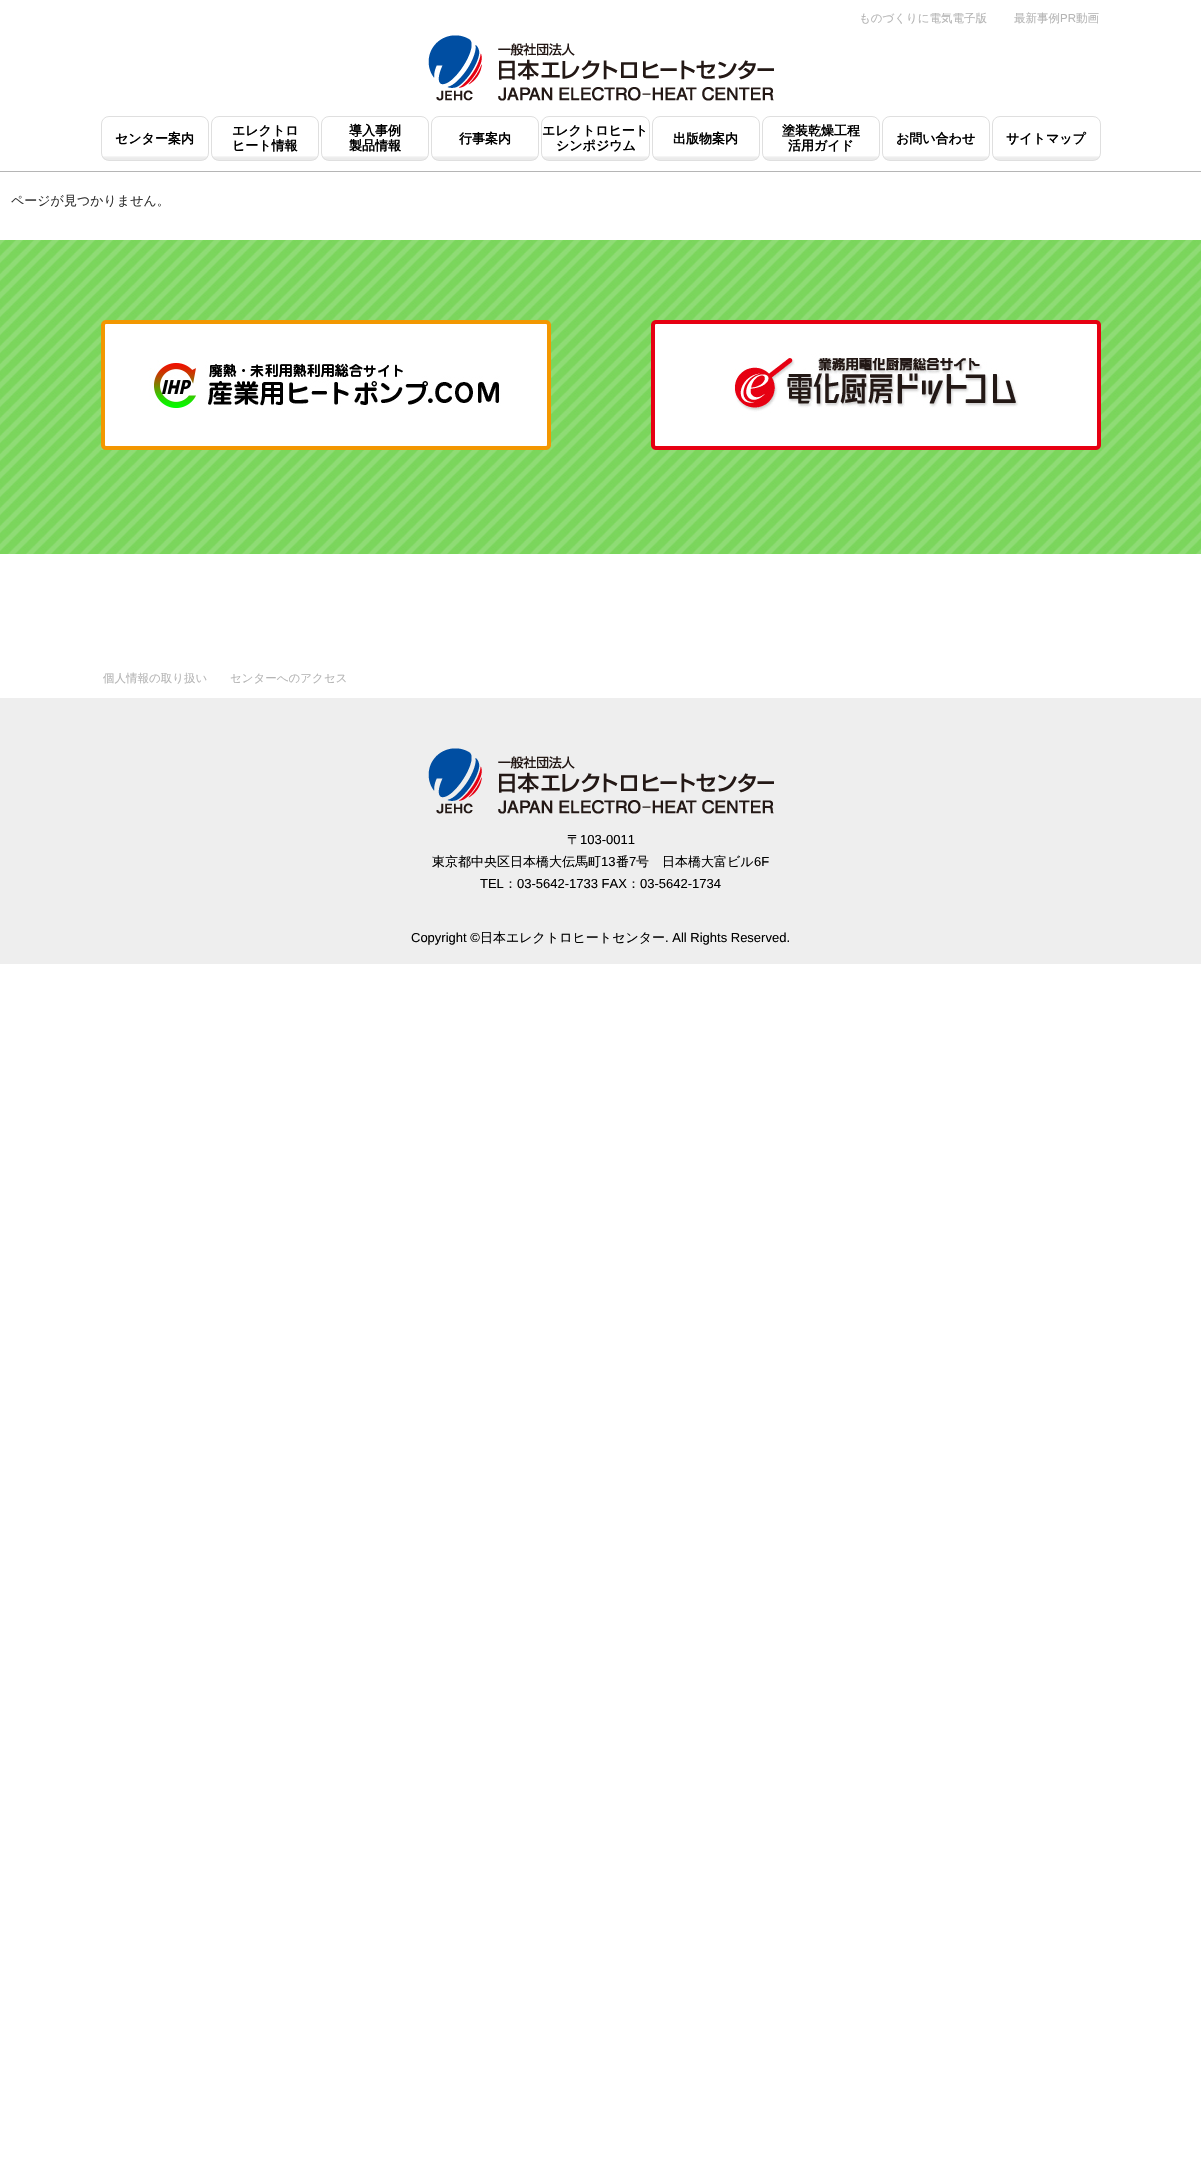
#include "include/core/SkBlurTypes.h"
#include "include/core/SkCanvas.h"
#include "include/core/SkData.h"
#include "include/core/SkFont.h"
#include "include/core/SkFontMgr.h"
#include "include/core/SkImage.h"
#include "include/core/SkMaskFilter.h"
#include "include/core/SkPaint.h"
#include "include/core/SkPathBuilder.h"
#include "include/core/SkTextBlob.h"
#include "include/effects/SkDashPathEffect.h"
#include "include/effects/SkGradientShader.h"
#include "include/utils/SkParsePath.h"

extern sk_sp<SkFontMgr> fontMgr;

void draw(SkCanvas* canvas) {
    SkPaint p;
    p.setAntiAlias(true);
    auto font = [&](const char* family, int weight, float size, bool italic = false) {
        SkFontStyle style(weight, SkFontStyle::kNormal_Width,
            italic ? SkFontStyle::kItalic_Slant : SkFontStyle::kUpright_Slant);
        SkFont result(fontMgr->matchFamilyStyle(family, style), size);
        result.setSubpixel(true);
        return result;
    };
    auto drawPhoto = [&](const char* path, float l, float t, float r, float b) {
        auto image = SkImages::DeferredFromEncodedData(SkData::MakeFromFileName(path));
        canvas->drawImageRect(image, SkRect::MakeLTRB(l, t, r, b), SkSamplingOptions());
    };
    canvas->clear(0xFFFFFFFF);
    auto font1 = font("WenQuanYi Zen Hei", 500, 11.5f);
    p.setColor(0xFFB5B5B5);
    canvas->drawString("ものづくりに電気電子版", 859, 22, font1, p);
    canvas->drawString("最新事例", 1014, 22, font1, p);
    auto font2 = font("Liberation Sans", 400, 11.5f);
    canvas->drawString("PR", 1060, 22, font2, p);
    canvas->drawString("動画", 1076, 22, font1, p);
    drawPhoto("media/1.png", 428, 35, 774, 101);
    canvas->drawRect(SkRect::MakeLTRB(0, 171, 1201, 172), p);
    drawPhoto("media/2.png", 102, 156, 208, 160);
    p.setStyle(SkPaint::kStroke_Style);
    p.setStrokeWidth(1);
    p.setColor(0xFFDFDFDF);
    canvas->drawRoundRect(SkRect::MakeLTRB(101.5f, 116.5f, 208.5f, 160.5f), 7.5f, 7.5f, p);
    auto font3 = font("WenQuanYi Zen Hei", 700, 13);
    p.setStyle(SkPaint::kFill_Style);
    p.setColor(0xFF000000);
    canvas->drawString("センター案内", 115, 143, font3, p);
    drawPhoto("media/2.png", 212, 156, 318, 160);
    p.setStyle(SkPaint::kStroke_Style);
    p.setColor(0xFFDFDFDF);
    canvas->drawRoundRect(SkRect::MakeLTRB(211.5f, 116.5f, 318.5f, 160.5f), 7.5f, 7.5f, p);
    p.setStyle(SkPaint::kFill_Style);
    p.setColor(0xFF000000);
    canvas->drawString("エレクトロ", 232, 135, font3, p);
    canvas->drawString("ヒート情報", 232, 150, font3, p);
    drawPhoto("media/2.png", 322, 156, 428, 160);
    p.setStyle(SkPaint::kStroke_Style);
    p.setColor(0xFFDFDFDF);
    canvas->drawRoundRect(SkRect::MakeLTRB(321.5f, 116.5f, 428.5f, 160.5f), 7.5f, 7.5f, p);
    p.setStyle(SkPaint::kFill_Style);
    p.setColor(0xFF000000);
    canvas->drawString("導入事例", 349, 135, font3, p);
    canvas->drawString("製品情報", 349, 150, font3, p);
    drawPhoto("media/2.png", 432, 156, 538, 160);
    p.setStyle(SkPaint::kStroke_Style);
    p.setColor(0xFFDFDFDF);
    canvas->drawRoundRect(SkRect::MakeLTRB(431.5f, 116.5f, 538.5f, 160.5f), 7.5f, 7.5f, p);
    p.setStyle(SkPaint::kFill_Style);
    p.setColor(0xFF000000);
    canvas->drawString("行事案内", 459, 143, font3, p);
    drawPhoto("media/3.png", 542, 156, 649, 160);
    p.setStyle(SkPaint::kStroke_Style);
    p.setColor(0xFFDFDFDF);
    canvas->drawRoundRect(SkRect::MakeLTRB(541.5f, 116.5f, 649.5f, 160.5f), 7.5f, 7.5f, p);
    p.setStyle(SkPaint::kFill_Style);
    p.setColor(0xFF000000);
    canvas->drawString("エレクトロヒート", 542, 135, font3, p);
    canvas->drawString("シンポジウム", 556, 150, font3, p);
    drawPhoto("media/2.png", 653, 156, 759, 160);
    p.setStyle(SkPaint::kStroke_Style);
    p.setColor(0xFFDFDFDF);
    canvas->drawRoundRect(SkRect::MakeLTRB(652.5f, 116.5f, 759.5f, 160.5f), 7.5f, 7.5f, p);
    p.setStyle(SkPaint::kFill_Style);
    p.setColor(0xFF000000);
    canvas->drawString("出版物案内", 673, 143, font3, p);
    drawPhoto("media/4.png", 763, 156, 879, 160);
    p.setStyle(SkPaint::kStroke_Style);
    p.setColor(0xFFDFDFDF);
    canvas->drawRoundRect(SkRect::MakeLTRB(762.5f, 116.5f, 879.5f, 160.5f), 7.5f, 7.5f, p);
    p.setStyle(SkPaint::kFill_Style);
    p.setColor(0xFF000000);
    canvas->drawString("塗装乾燥工程", 782, 135, font3, p);
    canvas->drawString("活用ガイド", 788, 150, font3, p);
    drawPhoto("media/2.png", 883, 156, 989, 160);
    p.setStyle(SkPaint::kStroke_Style);
    p.setColor(0xFFDFDFDF);
    canvas->drawRoundRect(SkRect::MakeLTRB(882.5f, 116.5f, 989.5f, 160.5f), 7.5f, 7.5f, p);
    p.setStyle(SkPaint::kFill_Style);
    p.setColor(0xFF000000);
    canvas->drawString("お問い合わせ", 896, 143, font3, p);
    drawPhoto("media/3.png", 993, 156, 1100, 160);
    p.setStyle(SkPaint::kStroke_Style);
    p.setColor(0xFFDFDFDF);
    canvas->drawRoundRect(SkRect::MakeLTRB(992.5f, 116.5f, 1100.5f, 160.5f), 7.5f, 7.5f, p);
    p.setStyle(SkPaint::kFill_Style);
    p.setColor(0xFF000000);
    canvas->drawString("サイトマップ", 1006, 143, font3, p);
    auto font4 = font("WenQuanYi Zen Hei", 500, 13);
    p.setColor(0xFF333333);
    canvas->drawString("ページが見つかりません。", 11, 205, font4, p);
    drawPhoto("media/5.png", 0, 240, 1201, 554);
    drawPhoto("media/6.png", 101, 320, 551, 450);
    drawPhoto("media/7.png", 651, 320, 1101, 450);
    p.setColor(0xFFB5B5B5);
    canvas->drawString("個人情報の取り扱い", 103, 682, font1, p);
    canvas->drawString("センターへのアクセス", 230, 682, font1, p);
    p.setColor(0xFFEEEEEE);
    canvas->drawRect(SkRect::MakeLTRB(0, 698, 1201, 964), p);
    drawPhoto("media/8.png", 428, 748, 774, 814);
    p.setColor(0xFF000000);
    canvas->drawString("〒", 567, 844, font4, p);
    auto font5 = font("Liberation Sans", 400, 13);
    canvas->drawString("103-0011", 580, 844, font5, p);
    canvas->drawString("東京都中央区日本橋大伝馬町", 432, 866, font4, p);
    canvas->drawString("13", 601, 866, font5, p);
    canvas->drawString("番", 616, 866, font4, p);
    canvas->drawString("7", 629, 866, font5, p);
    canvas->drawString("号　日本橋大富ビル", 636, 866, font4, p);
    canvas->drawString("6F", 754, 866, font5, p);
    canvas->drawString("TEL", 480, 888, font5, p);
    canvas->drawString("：", 504, 888, font4, p);
    canvas->drawString("03-5642-1733 FAX", 517, 888, font5, p);
    canvas->drawString("：", 627, 888, font4, p);
    canvas->drawString("03-5642-1734", 640, 888, font5, p);
    canvas->drawString("Copyright ©", 411, 942, font5, p);
    canvas->drawString("日本エレクトロヒートセンター", 480, 942, font4, p);
    canvas->drawString(". All Rights Reserved.", 665, 942, font5, p);
}
